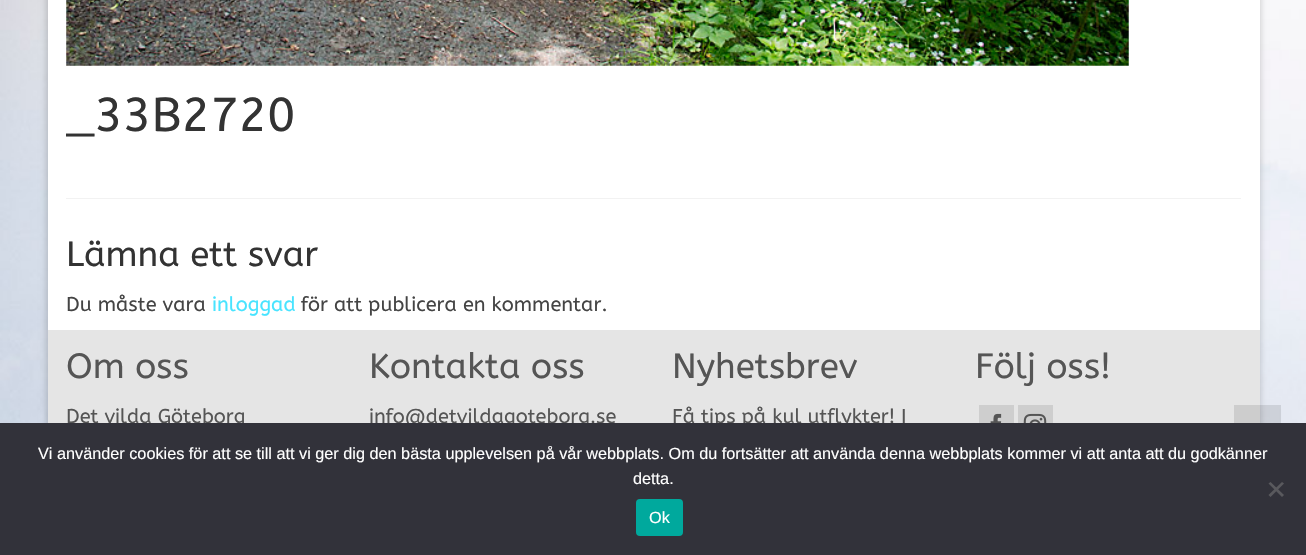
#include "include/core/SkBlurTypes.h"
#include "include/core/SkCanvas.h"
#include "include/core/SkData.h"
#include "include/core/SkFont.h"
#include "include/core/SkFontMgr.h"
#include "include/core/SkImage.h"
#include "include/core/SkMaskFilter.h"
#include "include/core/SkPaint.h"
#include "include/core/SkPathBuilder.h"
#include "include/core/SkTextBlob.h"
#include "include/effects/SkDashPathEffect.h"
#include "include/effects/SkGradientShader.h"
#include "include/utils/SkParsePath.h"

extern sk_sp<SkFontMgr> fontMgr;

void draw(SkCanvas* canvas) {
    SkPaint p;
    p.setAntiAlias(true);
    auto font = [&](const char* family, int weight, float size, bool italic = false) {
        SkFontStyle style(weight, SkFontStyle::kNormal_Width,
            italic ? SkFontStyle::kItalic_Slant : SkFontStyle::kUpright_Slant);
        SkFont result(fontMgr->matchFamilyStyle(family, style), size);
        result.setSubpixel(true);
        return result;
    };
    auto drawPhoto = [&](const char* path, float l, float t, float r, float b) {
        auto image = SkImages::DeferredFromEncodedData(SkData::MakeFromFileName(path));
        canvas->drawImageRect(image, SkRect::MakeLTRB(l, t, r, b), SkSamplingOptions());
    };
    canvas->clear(0xFFFFFFFF);
    drawPhoto("media/1.png", 0, 0, 1306, 423);
    p.setColor(0x29000000);
    p.setMaskFilter(SkMaskFilter::MakeBlur(kNormal_SkBlurStyle, 3));
    canvas->drawRect(SkRect::MakeLTRB(46, -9, 1261, 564), p);
    p.setMaskFilter(nullptr);
    p.setColor(0xFFFFFFFF);
    canvas->drawRect(SkRect::MakeLTRB(48, 0, 1260, 330), p);
    drawPhoto("media/2.png", 66, 0, 1129, 66);
    auto font1 = font("ABeeZee", 400, 47.5f);
    p.setColor(0xFF333333);
    canvas->drawString("_33B2720", 66, 131, font1, p);
    p.setColor(0xFFF2F2F2);
    canvas->drawRect(SkRect::MakeLTRB(66, 198, 1241, 199), p);
    auto font2 = font("ABeeZee", 400, 35);
    p.setColor(0xFF333333);
    canvas->drawString("Lämna ett svar", 66, 266, font2, p);
    auto font3 = font("ABeeZee", 400, 20);
    p.setColor(0xFF444444);
    canvas->drawString("Du måste vara", 66, 311, font3, p);
    p.setColor(0xFF48E4FF);
    canvas->drawString("inloggad", 212, 311, font3, p);
    p.setColor(0xFF444444);
    canvas->drawString("för att publicera en kommentar.", 301, 311, font3, p);
    p.setColor(0xFFE5E5E5);
    canvas->drawRect(SkRect::MakeLTRB(48, 330, 1260, 423), p);
    p.setColor(0xFF555555);
    canvas->drawString("Om oss", 66, 378, font2, p);
    canvas->drawString("Det vilda Göteborg", 66, 423, font3, p);
    canvas->drawString("Kontakta oss", 369, 378, font2, p);
    canvas->drawString("info@detvildagoteborg.se", 369, 423, font3, p);
    canvas->drawString("Nyhetsbrev", 672, 378, font2, p);
    canvas->drawString("Få tips på kul utflykter! I", 672, 423, font3, p);
    canvas->drawString("Följ oss!", 975, 378, font2, p);
    p.setColor(0xFFCECECE);
    canvas->drawRect(SkRect::MakeLTRB(979, 405, 1014, 423), p);
    drawPhoto("media/3.png", 990, 413, 1002, 423);
    canvas->drawRect(SkRect::MakeLTRB(1018, 405, 1053, 423), p);
    drawPhoto("media/4.png", 1023, 413, 1047, 423);
    p.setColor(0x1A000000);
    canvas->drawRect(SkRect::MakeLTRB(1234, 405, 1281, 423), p);
    p.setColor(0xFF32323A);
    canvas->drawRect(SkRect::MakeLTRB(0, 423, 1306, 555), p);
    auto font4 = font("Liberation Sans", 400, 16.25f);
    p.setColor(0xFFFFFFFF);
    canvas->drawString("Vi använder cookies för att se till att vi ger dig den bästa upplevelsen på vår webbplats. Om du fortsätter att använda denna webbplats kommer vi att anta att du godkänner", 38, 459, font4, p);
    canvas->drawString("detta.", 633, 484, font4, p);
    p.setColor(0xFF59595D);
    canvas->drawPath(SkPathBuilder().moveTo(1282, 482).lineTo(1284, 483.5f).lineTo(1270.5f, 497).lineTo(1268.5f, 495).close().detach(), p);
    canvas->drawPath(SkPathBuilder().moveTo(1268.5f, 483.5f).lineTo(1270.5f, 482).lineTo(1284, 495).lineTo(1282, 497).close().detach(), p);
    p.setColor(0xFF00A99D);
    canvas->drawRoundRect(SkRect::MakeLTRB(636, 499, 683, 536), 4, 4, p);
    p.setColor(0xFFFFFFFF);
    canvas->drawString("Ok", 649, 523, font4, p);
}
